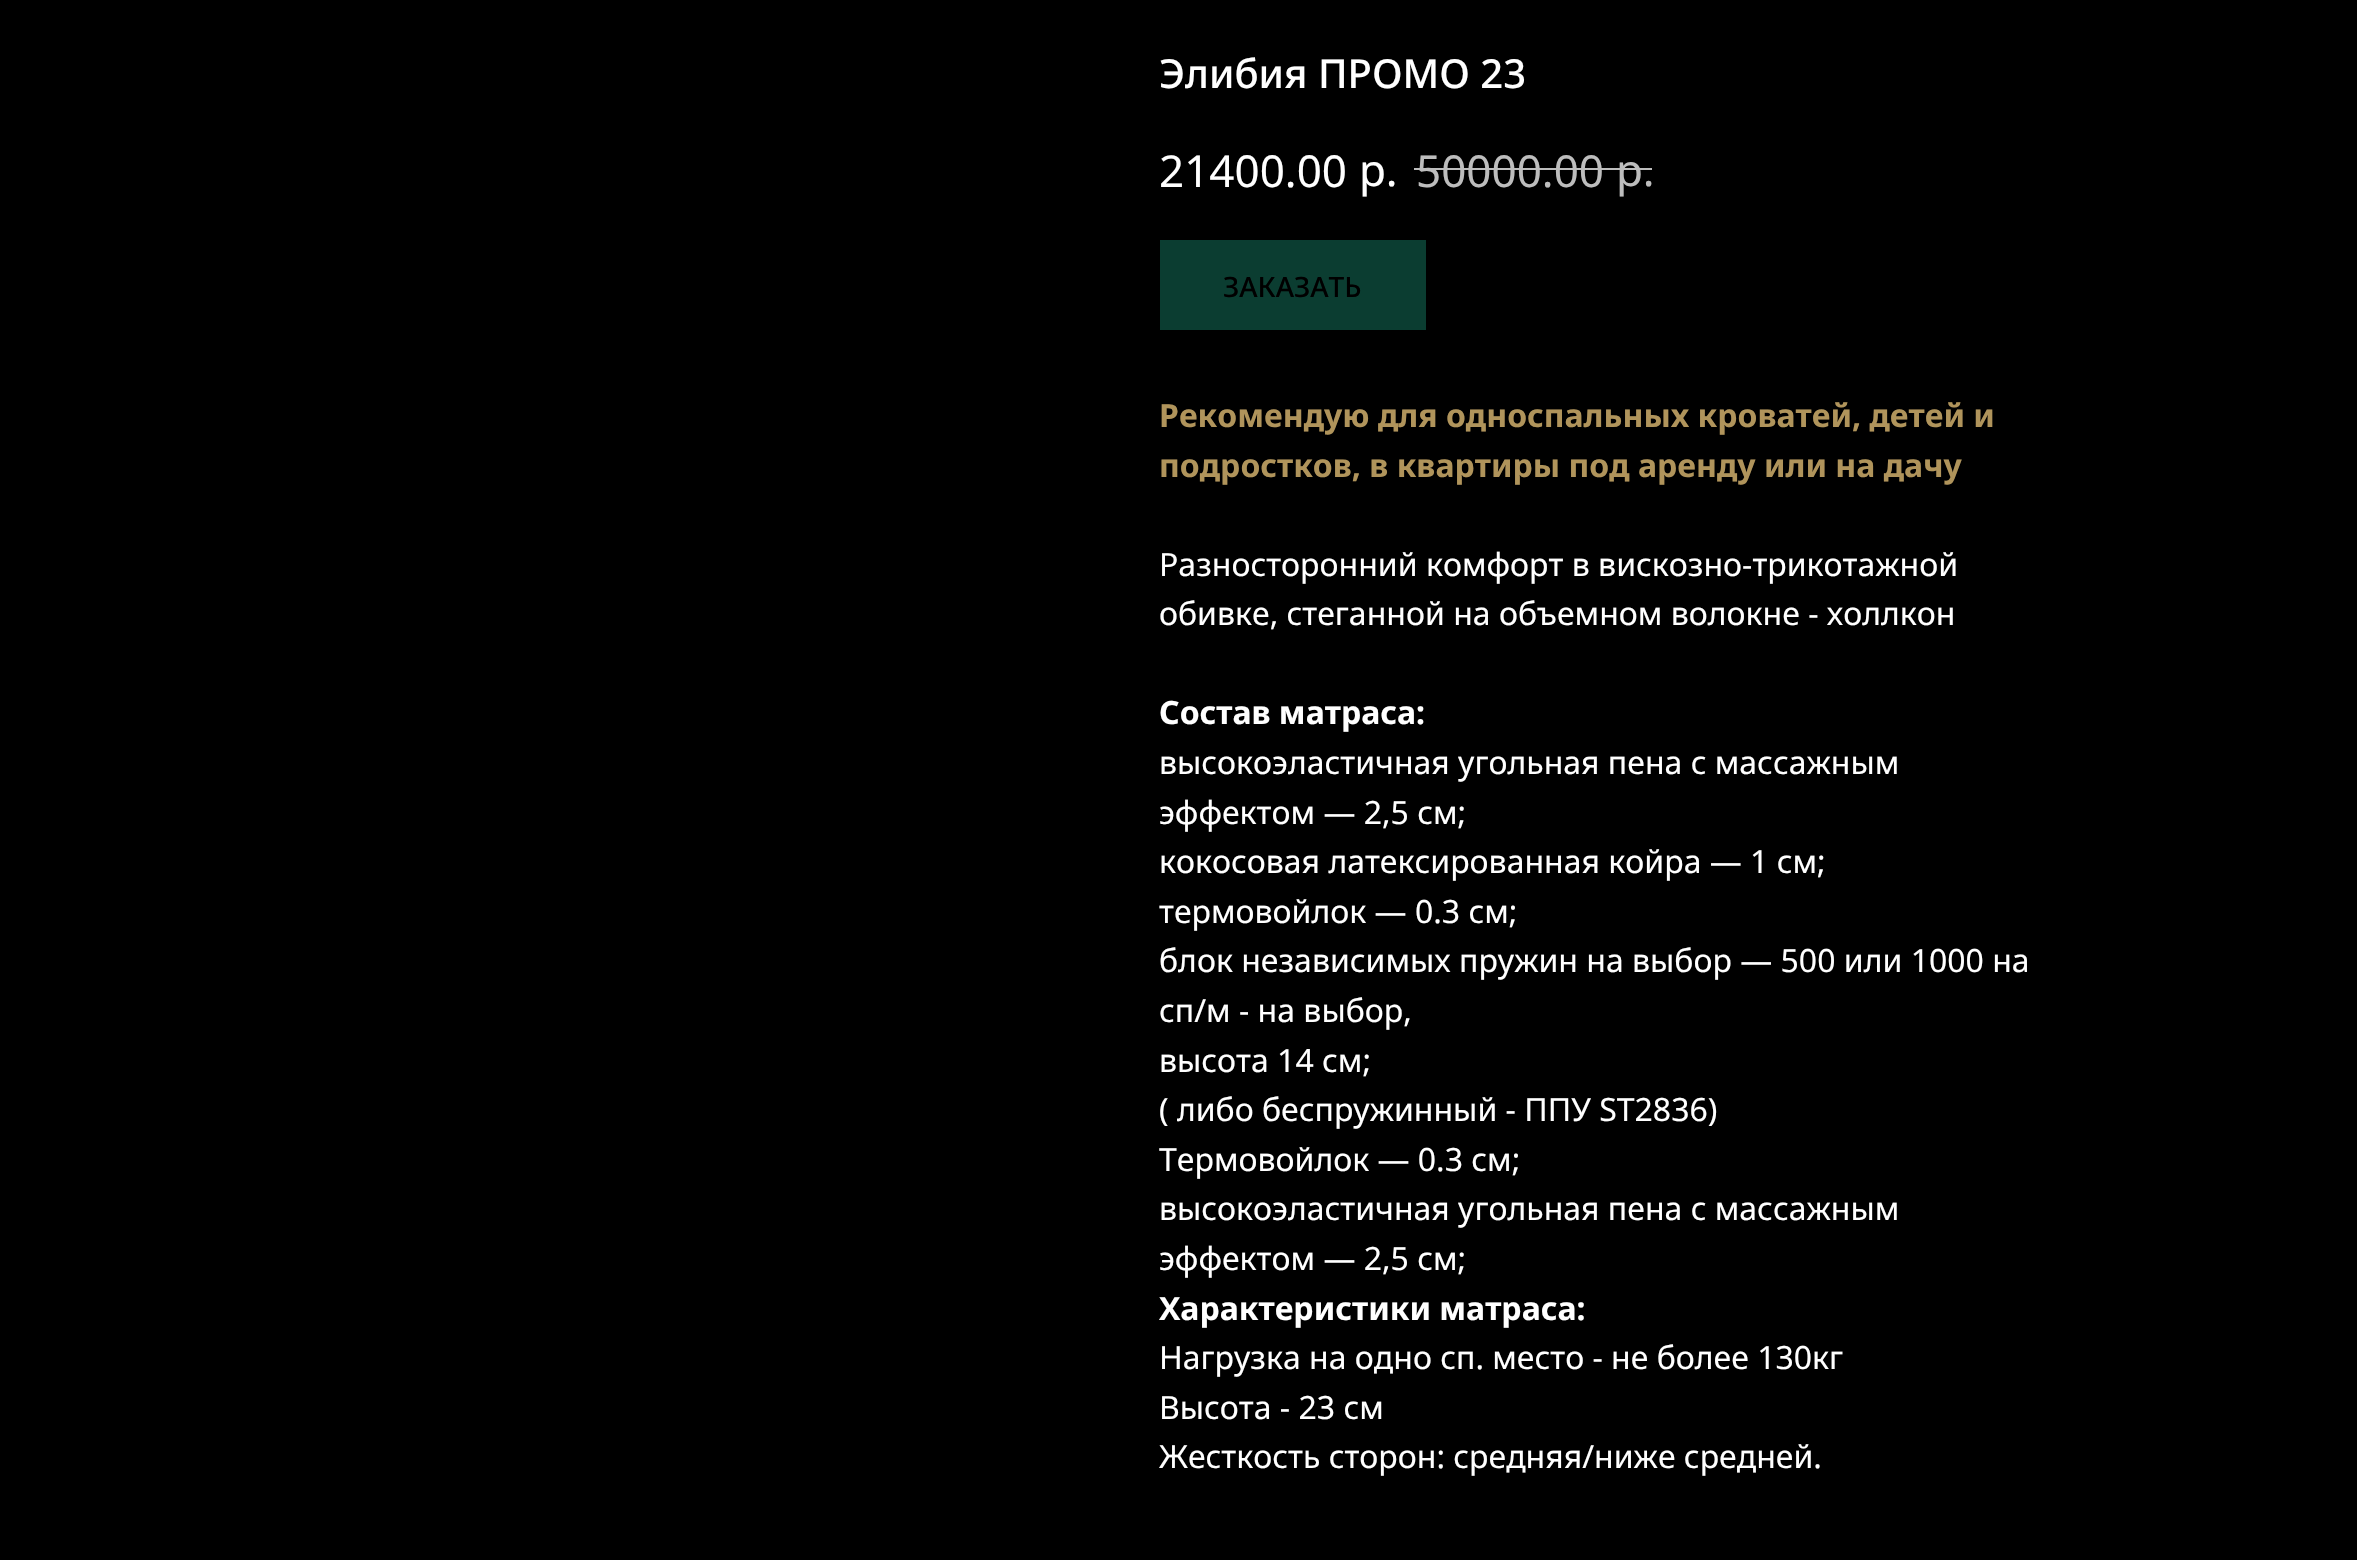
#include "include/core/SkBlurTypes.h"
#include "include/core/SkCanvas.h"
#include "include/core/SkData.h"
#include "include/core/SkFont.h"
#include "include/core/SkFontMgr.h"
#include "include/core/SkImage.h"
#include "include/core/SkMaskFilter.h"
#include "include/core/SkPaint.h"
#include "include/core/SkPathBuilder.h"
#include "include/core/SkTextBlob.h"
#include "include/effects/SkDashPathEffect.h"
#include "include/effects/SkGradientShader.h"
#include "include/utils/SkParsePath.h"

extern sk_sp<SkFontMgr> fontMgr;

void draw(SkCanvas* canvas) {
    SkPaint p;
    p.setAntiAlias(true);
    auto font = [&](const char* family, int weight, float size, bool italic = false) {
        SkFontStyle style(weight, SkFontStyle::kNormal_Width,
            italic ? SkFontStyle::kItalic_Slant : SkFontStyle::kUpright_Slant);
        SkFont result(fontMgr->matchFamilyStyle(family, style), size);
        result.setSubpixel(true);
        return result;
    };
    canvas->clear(0xFF000000);
    auto font1 = font("Noto Sans", 500, 40);
    p.setColor(0xFFFFFFFF);
    canvas->drawString("Элибия ПРОМО 23", 1159, 88, font1, p);
    auto font2 = font("Noto Sans", 400, 44);
    canvas->drawString("21400.00", 1159, 187, font2, p);
    canvas->drawString("р.", 1359, 186, font2, p);
    p.setColor(0xFFBDBDBD);
    canvas->drawString("50000.00", 1416, 187, font2, p);
    canvas->drawString("р.", 1616, 186, font2, p);
    canvas->drawRect(SkRect::MakeLTRB(1414, 168, 1652, 170), p);
    p.setColor(0xFF0B3D31);
    canvas->drawRect(SkRect::MakeLTRB(1160, 240, 1426, 330), p);
    auto font3 = font("Noto Sans", 500, 28);
    p.setColor(0xFF000000);
    canvas->drawString("ЗАКАЗАТЬ", 1223, 297, font3, p);
    auto font4 = font("Noto Sans", 700, 32);
    p.setColor(0xFFB0945B);
    canvas->drawString("Рекомендую для односпальных кроватей, детей и", 1159, 427, font4, p);
    canvas->drawString("подростков, в квартиры под аренду или на дачу", 1159, 477, font4, p);
    auto font5 = font("Noto Sans", 400, 32);
    p.setColor(0xFFFFFFFF);
    canvas->drawString("Разносторонний комфорт в вискозно-трикотажной", 1159, 576, font5, p);
    canvas->drawString("обивке, стеганной на объемном волокне - холлкон", 1159, 625, font5, p);
    canvas->drawString("Состав матраса:", 1159, 724, font4, p);
    {
        const struct { const char* s; float x, y; } items[] = {
            {"высокоэластичная угольная пена с массажным", 1159, 774},
            {"эффектом — 2,5 см;", 1159, 824},
            {"кокосовая латексированная койра — 1 см;", 1159, 873},
            {"термовойлок — 0.3 см;", 1159, 923},
            {"блок независимых пружин на выбор — 500 или 1000 на", 1159, 972},
            {"сп/м - на выбор,", 1159, 1022},
            {"высота 14 см;", 1159, 1072},
            {"( либо беспружинный - ППУ ST2836)", 1159, 1121},
            {"Термовойлок — 0.3 см;", 1159, 1171},
            {"высокоэластичная угольная пена с массажным", 1159, 1220},
            {"эффектом — 2,5 см;", 1159, 1270},
        };
        for (auto [s, x, y] : items) {
            canvas->drawString(s, x, y, font5, p);
        }
    }
    canvas->drawString("Характеристики матраса:", 1159, 1320, font4, p);
    {
        const struct { const char* s; float x, y; } items[] = {
            {"Нагрузка на одно сп. место - не более 130кг", 1159, 1369},
            {"Высота - 23 см", 1159, 1419},
            {"Жесткость сторон: средняя/ниже средней.", 1159, 1468},
        };
        for (auto [s, x, y] : items) {
            canvas->drawString(s, x, y, font5, p);
        }
    }
}
